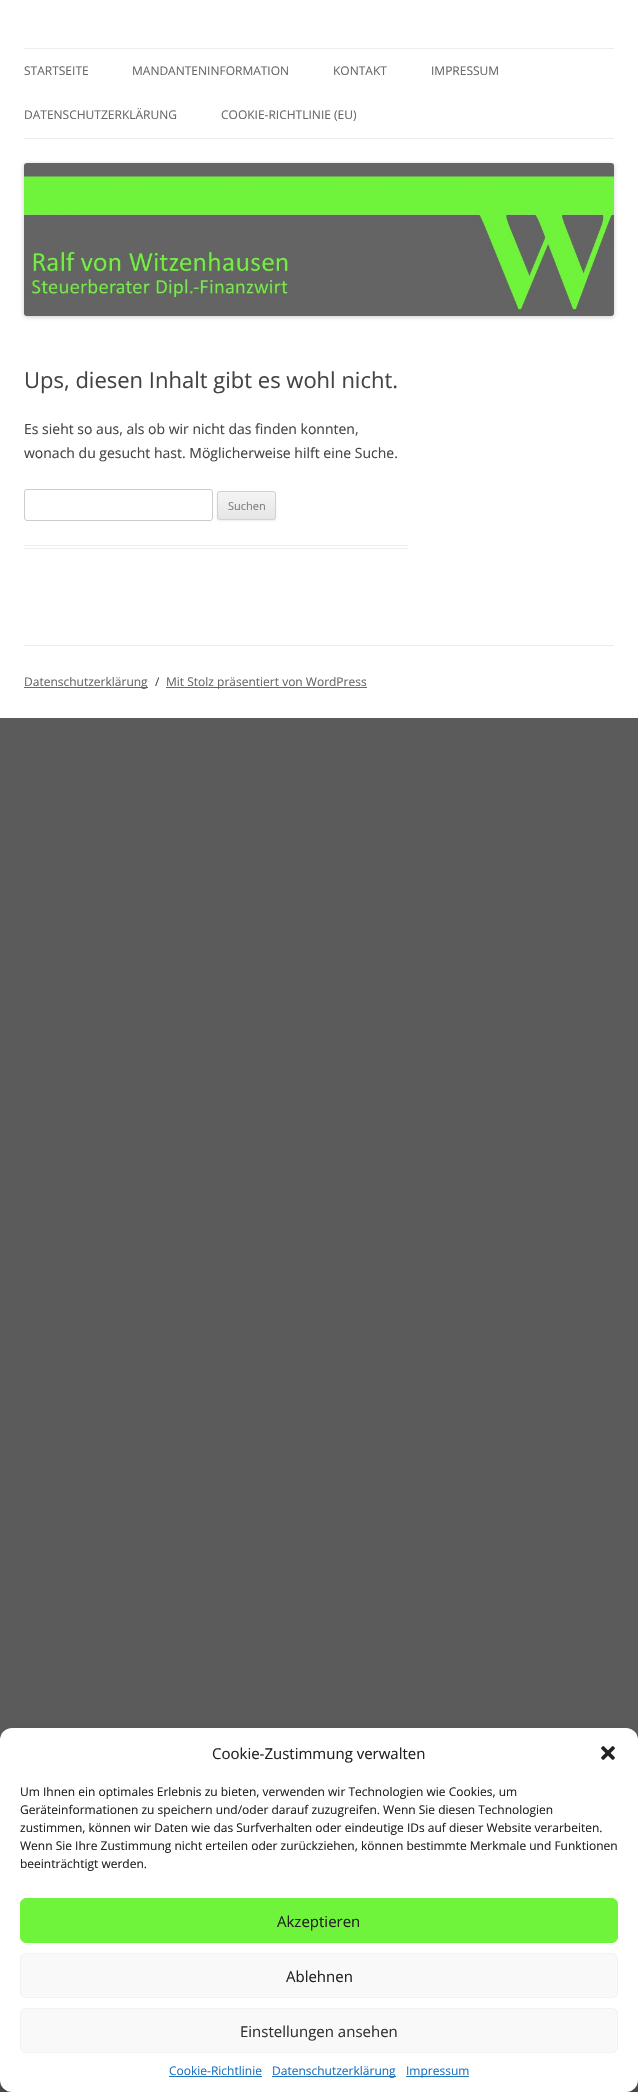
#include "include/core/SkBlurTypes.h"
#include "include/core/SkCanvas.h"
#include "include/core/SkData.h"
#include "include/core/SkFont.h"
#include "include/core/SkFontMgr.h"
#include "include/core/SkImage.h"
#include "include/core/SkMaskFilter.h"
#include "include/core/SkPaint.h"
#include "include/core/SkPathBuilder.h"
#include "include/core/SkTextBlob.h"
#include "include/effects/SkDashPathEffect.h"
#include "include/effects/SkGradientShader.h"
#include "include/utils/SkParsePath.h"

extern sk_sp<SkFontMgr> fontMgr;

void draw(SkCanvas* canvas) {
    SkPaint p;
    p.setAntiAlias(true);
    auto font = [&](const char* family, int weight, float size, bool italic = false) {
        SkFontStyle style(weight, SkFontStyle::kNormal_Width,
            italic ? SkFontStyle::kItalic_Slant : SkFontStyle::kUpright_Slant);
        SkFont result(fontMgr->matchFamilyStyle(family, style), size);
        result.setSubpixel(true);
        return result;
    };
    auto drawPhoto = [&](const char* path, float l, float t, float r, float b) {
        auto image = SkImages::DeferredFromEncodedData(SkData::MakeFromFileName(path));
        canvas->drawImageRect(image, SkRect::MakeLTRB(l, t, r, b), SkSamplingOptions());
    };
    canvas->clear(0xFF5B5B5B);
    {
        const struct { float l, t, r, b; SkColor color; } items[] = {
            {0, 0, 638, 718, 0xFFFFFFFF},
            {24, 48, 614, 49, 0xFFEDEDED},
            {24, 138, 614, 139, 0xFFEDEDED},
        };
        for (auto [l, t, r, b, color] : items) {
            p.setColor(color);
            canvas->drawRect(SkRect::MakeLTRB(l, t, r, b), p);
        }
    }
    auto font1 = font("Open Sans", 400, 12);
    p.setColor(0xFF686868);
    {
        const struct { const char* s; float x, y; } items[] = {
            {"STARTSEITE", 24, 75},
            {"MANDANTENINFORMATION", 132, 75},
            {"KONTAKT", 333, 75},
            {"IMPRESSUM", 431, 75},
            {"DATENSCHUTZERKLÄRUNG", 24, 119},
            {"COOKIE-RICHTLINIE (EU)", 221, 119},
        };
        for (auto [s, x, y] : items) {
            canvas->drawString(s, x, y, font1, p);
        }
    }
    p.setColor(0x33000000);
    p.setMaskFilter(SkMaskFilter::MakeBlur(kNormal_SkBlurStyle, 2));
    canvas->drawRoundRect(SkRect::MakeLTRB(24, 164, 614, 317), 3, 3, p);
    p.setMaskFilter(nullptr);
    drawPhoto("media/1.png", 24, 163, 614, 316);
    p.setColor(0xFFEDEDED);
    canvas->drawRect(SkRect::MakeLTRB(24, 545, 408, 546), p);
    canvas->drawRect(SkRect::MakeLTRB(24, 548, 408, 549), p);
    auto font2 = font("Open Sans", 400, 22);
    p.setColor(0xFF444444);
    canvas->drawString("Ups, diesen Inhalt gibt es wohl nicht.", 24, 388, font2, p);
    auto font3 = font("Open Sans", 400, 14);
    canvas->drawString("Es sieht so aus, als ob wir nicht das finden konnten,", 24, 434, font3, p);
    canvas->drawString("wonach du gesucht hast. Möglicherweise hilft eine Suche.", 24, 458, font3, p);
    p.setStyle(SkPaint::kStroke_Style);
    p.setStrokeWidth(1);
    p.setColor(0xFFCCCCCC);
    canvas->drawRoundRect(SkRect::MakeLTRB(24.5f, 489.5f, 212.5f, 520.5f), 2.5f, 2.5f, p);
    p.setStyle(SkPaint::kFill_Style);
    p.setColor(0x1A404040);
    p.setMaskFilter(SkMaskFilter::MakeBlur(kNormal_SkBlurStyle, 1));
    canvas->drawRoundRect(SkRect::MakeLTRB(217, 492, 276, 521), 3, 3, p);
    p.setMaskFilter(nullptr);
    canvas->save();
    canvas->clipPath(SkPathBuilder().moveTo(220, 491).lineTo(273, 491).cubicTo(274.5f, 491, 276, 492.5f, 276, 494).lineTo(276, 517).cubicTo(276, 518.5f, 274.5f, 520, 273, 520).lineTo(220, 520).cubicTo(218.5f, 520, 217, 518.5f, 217, 517).lineTo(217, 494).cubicTo(217, 492.5f, 218.5f, 491, 220, 491).close().detach(), true);
    {
        const SkColor colors[] = {0xFFF4F4F4, 0xFFE6E6E6};
        const float stops[] = {0, 1};
        const SkPoint ends[] = {{247, 492}, {247, 519}};
        p.setShader(SkGradientShader::MakeLinear(ends, colors, stops, 2, SkTileMode::kClamp));
        p.setAlpha(255);
    }
    canvas->drawRect(SkRect::MakeLTRB(217, 492, 276, 519), p);
    canvas->restore();
    p.setStyle(SkPaint::kStroke_Style);
    p.setShader(nullptr);
    p.setColor(0xFFD2D2D2);
    canvas->drawRoundRect(SkRect::MakeLTRB(217.5f, 491.5f, 275.5f, 519.5f), 2.5f, 2.5f, p);
    auto font4 = font("Open Sans", 400, 11);
    p.setStyle(SkPaint::kFill_Style);
    p.setColor(0xFF7C7C7C);
    canvas->drawString("Suchen", 228, 510, font4, p);
    p.setColor(0xFFEDEDED);
    canvas->drawRect(SkRect::MakeLTRB(24, 645, 614, 646), p);
    p.setColor(0xFF686868);
    canvas->drawRect(SkRect::MakeLTRB(24, 687, 148, 688), p);
    canvas->drawString("Datenschutzerklärung", 24, 686, font1, p);
    p.setColor(0xFF444444);
    canvas->drawString("/", 155, 686, font1, p);
    p.setColor(0xFF686868);
    canvas->drawRect(SkRect::MakeLTRB(166, 687, 367, 688), p);
    canvas->drawString("Mit Stolz präsentiert von WordPress", 166, 686, font1, p);
    p.setColor(0x3B000000);
    p.setMaskFilter(SkMaskFilter::MakeBlur(kNormal_SkBlurStyle, 3));
    canvas->drawRoundRect(SkRect::MakeLTRB(0, 1734, 638, 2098), 12, 12, p);
    p.setMaskFilter(nullptr);
    p.setColor(0x30000000);
    p.setMaskFilter(SkMaskFilter::MakeBlur(kNormal_SkBlurStyle, 10));
    canvas->drawRoundRect(SkRect::MakeLTRB(0, 1738, 638, 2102), 12, 12, p);
    p.setMaskFilter(nullptr);
    p.setColor(0xFFFFFFFF);
    canvas->drawRoundRect(SkRect::MakeLTRB(0, 1728, 638, 2092), 12, 12, p);
    auto font5 = font("Open Sans", 400, 15);
    p.setColor(0xFF222222);
    canvas->drawString("Cookie-Zustimmung verwalten", 212, 1759, font5, p);
    drawPhoto("media/2.png", 601, 1746, 615, 1760);
    {
        const struct { const char* s; float x, y; } items[] = {
            {"Um Ihnen ein optimales Erlebnis zu bieten, verwenden wir Technologien wie Cookies, um", 20, 1796},
            {"Geräteinformationen zu speichern und/oder darauf zuzugreifen. Wenn Sie diesen Technologien", 20, 1814},
            {"zustimmen, können wir Daten wie das Surfverhalten oder eindeutige IDs auf dieser Website verarbeiten.", 20, 1832},
            {"Wenn Sie Ihre Zustimmung nicht erteilen oder zurückziehen, können bestimmte Merkmale und Funktionen", 20, 1850},
            {"beeinträchtigt werden.", 20, 1868},
        };
        for (auto [s, x, y] : items) {
            canvas->drawString(s, x, y, font1, p);
        }
    }
    p.setColor(0xFF6FF43B);
    canvas->drawRoundRect(SkRect::MakeLTRB(20.5f, 1898.5f, 617.5f, 1942.5f), 5.5f, 5.5f, p);
    p.setStyle(SkPaint::kStroke_Style);
    canvas->drawRoundRect(SkRect::MakeLTRB(20.5f, 1898.5f, 617.5f, 1942.5f), 5.5f, 5.5f, p);
    p.setStyle(SkPaint::kFill_Style);
    p.setColor(0xFF222222);
    canvas->drawString("Akzeptieren", 277, 1927, font5, p);
    p.setColor(0xFFF9F9F9);
    canvas->drawRoundRect(SkRect::MakeLTRB(20.5f, 1953.5f, 617.5f, 1997.5f), 5.5f, 5.5f, p);
    p.setStyle(SkPaint::kStroke_Style);
    p.setColor(0xFFF2F2F2);
    canvas->drawRoundRect(SkRect::MakeLTRB(20.5f, 1953.5f, 617.5f, 1997.5f), 5.5f, 5.5f, p);
    p.setStyle(SkPaint::kFill_Style);
    p.setColor(0xFF222222);
    canvas->drawString("Ablehnen", 286, 1982, font5, p);
    p.setColor(0xFFF9F9F9);
    canvas->drawRoundRect(SkRect::MakeLTRB(20.5f, 2008.5f, 617.5f, 2052.5f), 5.5f, 5.5f, p);
    p.setStyle(SkPaint::kStroke_Style);
    p.setColor(0xFFF2F2F2);
    canvas->drawRoundRect(SkRect::MakeLTRB(20.5f, 2008.5f, 617.5f, 2052.5f), 5.5f, 5.5f, p);
    p.setStyle(SkPaint::kFill_Style);
    p.setColor(0xFF333333);
    canvas->drawString("Einstellungen ansehen", 240, 2037, font5, p);
    p.setColor(0xFF1E73BE);
    canvas->drawString("Cookie-Richtlinie", 169, 2075, font1, p);
    canvas->drawRect(SkRect::MakeLTRB(169, 2076, 262, 2077), p);
    canvas->drawRect(SkRect::MakeLTRB(272, 2076, 396, 2077), p);
    canvas->drawString("Datenschutzerklärung", 272, 2075, font1, p);
    canvas->drawRect(SkRect::MakeLTRB(406, 2076, 469, 2077), p);
    canvas->drawString("Impressum", 406, 2075, font1, p);
}
